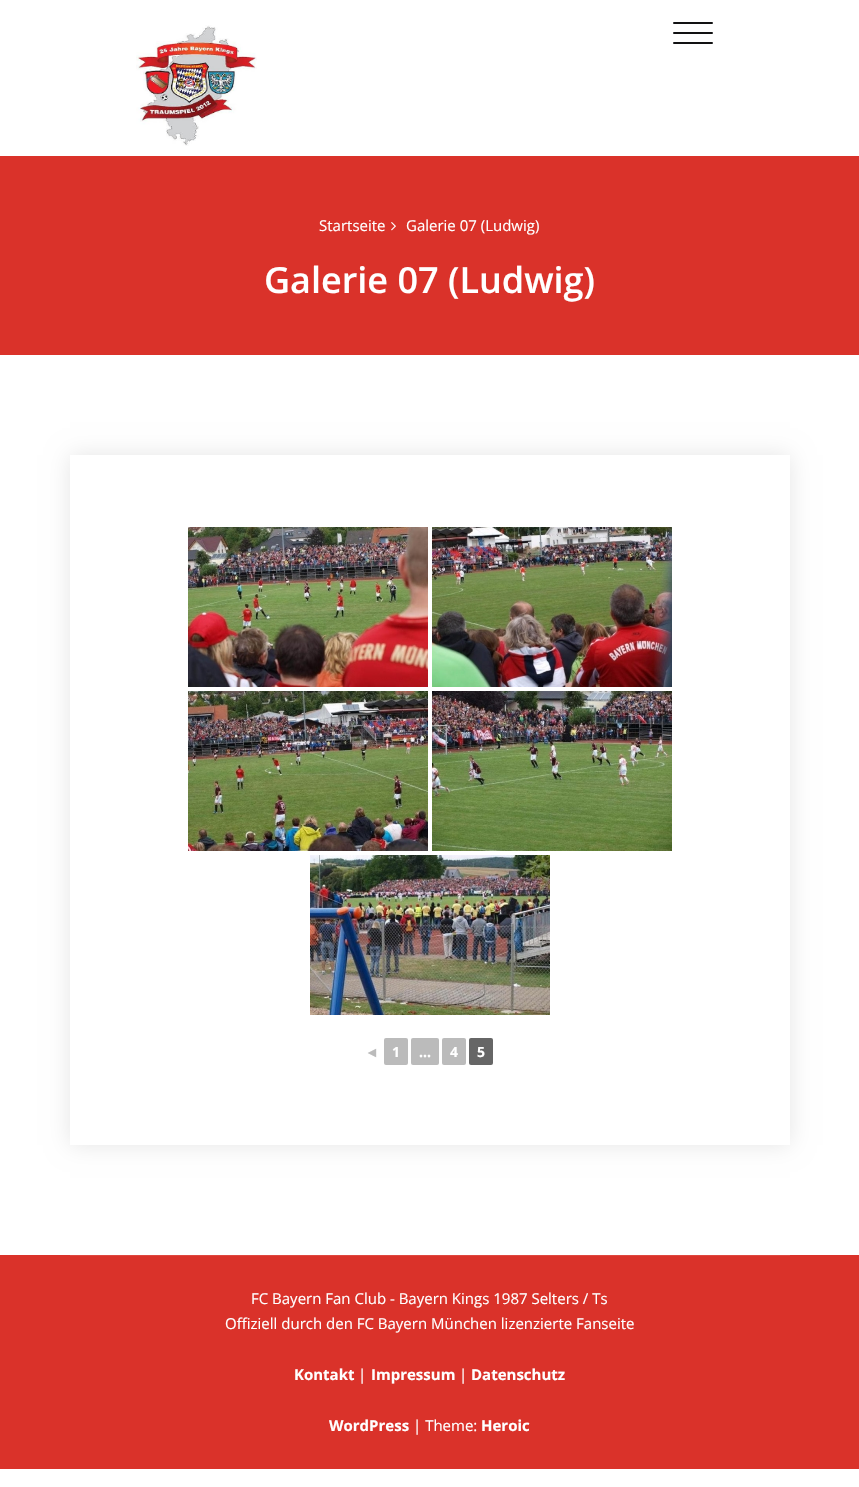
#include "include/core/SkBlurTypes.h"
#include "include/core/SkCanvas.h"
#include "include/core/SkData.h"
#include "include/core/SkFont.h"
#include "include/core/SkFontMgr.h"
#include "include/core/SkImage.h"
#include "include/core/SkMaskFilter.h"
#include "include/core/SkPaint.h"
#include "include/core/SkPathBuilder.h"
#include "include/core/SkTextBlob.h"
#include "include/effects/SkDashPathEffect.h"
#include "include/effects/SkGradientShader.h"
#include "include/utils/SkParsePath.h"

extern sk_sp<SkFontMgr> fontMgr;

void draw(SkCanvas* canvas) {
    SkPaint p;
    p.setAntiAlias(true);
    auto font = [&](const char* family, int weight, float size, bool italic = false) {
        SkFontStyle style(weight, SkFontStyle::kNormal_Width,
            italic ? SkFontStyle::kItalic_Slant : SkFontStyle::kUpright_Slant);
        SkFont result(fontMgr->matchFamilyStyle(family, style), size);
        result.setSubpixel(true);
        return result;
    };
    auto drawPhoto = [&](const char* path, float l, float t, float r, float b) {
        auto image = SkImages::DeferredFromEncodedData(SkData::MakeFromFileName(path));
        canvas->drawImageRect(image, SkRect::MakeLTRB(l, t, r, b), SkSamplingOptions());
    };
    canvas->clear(0xFFFFFFFF);
    drawPhoto("media/1.png", 136, 25, 257, 146);
    p.setColor(0xFF121213);
    canvas->drawRoundRect(SkRect::MakeLTRB(673, 22, 713, 24), 1, 1, p);
    canvas->drawRoundRect(SkRect::MakeLTRB(673, 32, 713, 34), 1, 1, p);
    canvas->drawRoundRect(SkRect::MakeLTRB(673, 42, 713, 44), 1, 1, p);
    p.setColor(0xFFDA322A);
    canvas->drawRect(SkRect::MakeLTRB(0, 156, 859, 355), p);
    auto font1 = font("Open Sans", 400, 15);
    p.setColor(0xFFFFFFFF);
    canvas->drawString("Startseite", 319, 231, font1, p);
    drawPhoto("media/2.png", 391, 222, 396, 231);
    canvas->drawString("Galerie 07 (Ludwig)", 406, 231, font1, p);
    auto font2 = font("Open Sans", 600, 36);
    canvas->drawString("Galerie 07 (Ludwig)", 264, 293, font2, p);
    canvas->save();
    canvas->clipPath(SkPathBuilder(SkPathFillType::kEvenOdd).moveTo(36, 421).lineTo(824, 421).lineTo(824, 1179).lineTo(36, 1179).close().moveTo(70, 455).lineTo(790, 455).lineTo(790, 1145).lineTo(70, 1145).close().detach(), true);
    p.setColor(0x1A000000);
    p.setMaskFilter(SkMaskFilter::MakeBlur(kNormal_SkBlurStyle, 11));
    canvas->drawRect(SkRect::MakeLTRB(70, 455, 790, 1145), p);
    p.setMaskFilter(nullptr);
    canvas->restore();
    drawPhoto("media/3.png", 188, 527, 428, 687);
    drawPhoto("media/4.png", 432, 527, 672, 687);
    drawPhoto("media/5.png", 188, 691, 428, 851);
    drawPhoto("media/6.png", 432, 691, 672, 851);
    drawPhoto("media/7.png", 310, 855, 550, 1015);
    auto font3 = font("Liberation Sans", 700, 14);
    p.setColor(0xFFBBBBBB);
    canvas->drawString("◄", 365, 1057, font3, p);
    canvas->drawRoundRect(SkRect::MakeLTRB(384, 1038, 408, 1065), 2, 2, p);
    auto font4 = font("Open Sans", 700, 14);
    p.setColor(0xFFFFFFFF);
    canvas->drawString("1", 392, 1057, font4, p);
    p.setColor(0xFFBBBBBB);
    canvas->drawRoundRect(SkRect::MakeLTRB(411, 1038, 439, 1065), 2, 2, p);
    p.setColor(0xFFFFFFFF);
    canvas->drawString("...", 419, 1057, font4, p);
    p.setColor(0xFFBBBBBB);
    canvas->drawRoundRect(SkRect::MakeLTRB(442, 1038, 466, 1065), 2, 2, p);
    p.setColor(0xFFFFFFFF);
    canvas->drawString("4", 450, 1057, font4, p);
    p.setColor(0xFF666666);
    canvas->drawRoundRect(SkRect::MakeLTRB(469, 1038, 493, 1065), 2, 2, p);
    p.setColor(0xFFFFFFFF);
    canvas->drawString("5", 477, 1057, font4, p);
    p.setColor(0xFFDA322A);
    canvas->drawRect(SkRect::MakeLTRB(0, 1255, 859, 1469), p);
    p.setColor(0xFFDE473F);
    canvas->drawRect(SkRect::MakeLTRB(70, 1255, 790, 1256), p);
    p.setColor(0xFFFFFFFF);
    canvas->drawString("FC Bayern Fan Club - Bayern Kings 1987 Selters / Ts", 251, 1304, font1, p);
    canvas->drawString("Offiziell durch den FC Bayern München lizenzierte Fanseite", 225, 1329, font1, p);
    auto font5 = font("Open Sans", 700, 15);
    canvas->drawString("Kontakt", 294, 1380, font5, p);
    canvas->drawString("|", 358, 1380, font1, p);
    canvas->drawString("Impressum", 371, 1380, font5, p);
    canvas->drawString("|", 459, 1380, font1, p);
    canvas->drawString("Datenschutz", 471, 1380, font5, p);
    canvas->drawString("WordPress", 329, 1431, font5, p);
    canvas->drawString("| Theme:", 413, 1431, font1, p);
    canvas->drawString("Heroic", 481, 1431, font5, p);
}
